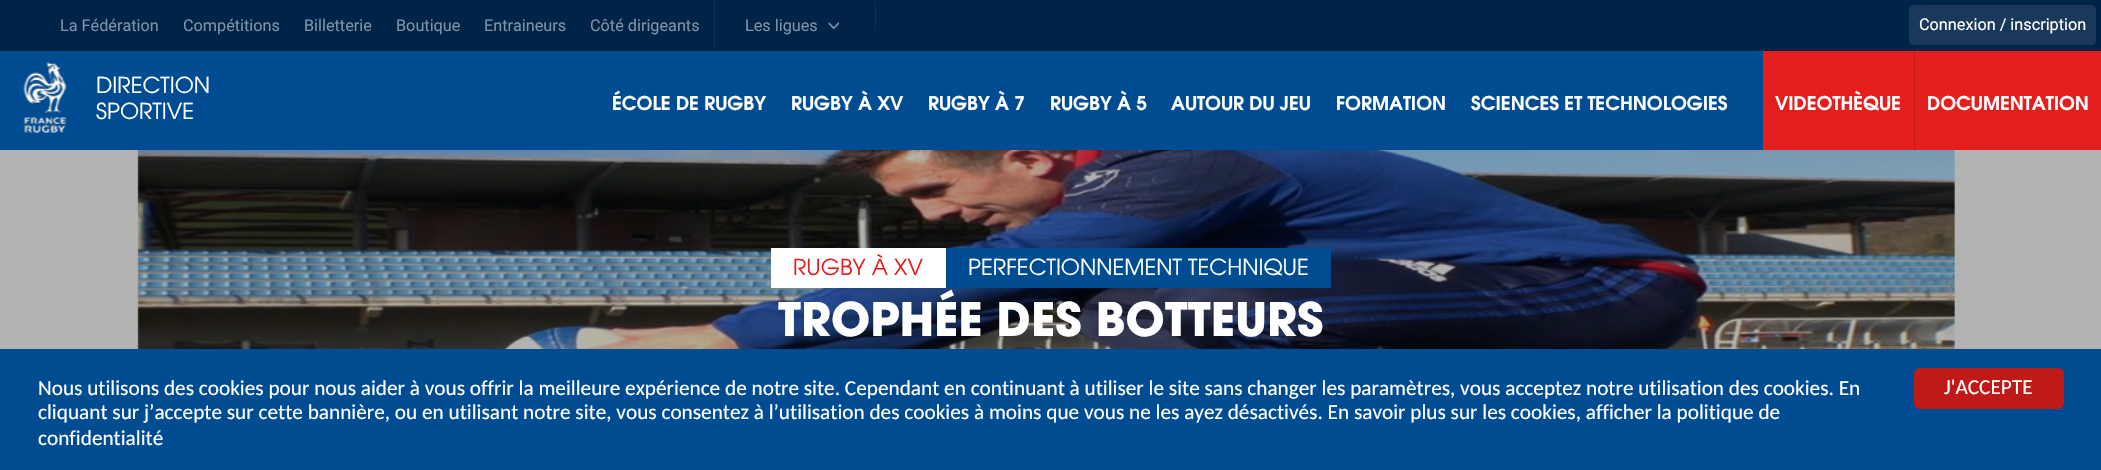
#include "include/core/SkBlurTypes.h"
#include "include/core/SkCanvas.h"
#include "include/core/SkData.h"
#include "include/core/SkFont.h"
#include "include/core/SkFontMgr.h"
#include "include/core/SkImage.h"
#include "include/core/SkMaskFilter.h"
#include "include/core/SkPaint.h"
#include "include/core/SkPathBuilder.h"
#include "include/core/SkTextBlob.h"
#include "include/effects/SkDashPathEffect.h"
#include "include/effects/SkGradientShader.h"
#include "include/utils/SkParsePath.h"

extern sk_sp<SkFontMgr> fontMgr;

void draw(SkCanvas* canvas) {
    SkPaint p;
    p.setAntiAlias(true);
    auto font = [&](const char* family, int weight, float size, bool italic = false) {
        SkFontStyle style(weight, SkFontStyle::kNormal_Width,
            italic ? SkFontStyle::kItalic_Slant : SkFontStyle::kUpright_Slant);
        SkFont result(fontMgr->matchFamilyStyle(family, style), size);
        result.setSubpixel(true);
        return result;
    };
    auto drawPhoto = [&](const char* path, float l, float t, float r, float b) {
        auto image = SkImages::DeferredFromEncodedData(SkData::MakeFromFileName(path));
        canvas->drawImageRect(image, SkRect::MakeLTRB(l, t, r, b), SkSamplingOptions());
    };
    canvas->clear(0xFFFFFFFF);
    p.setColor(0xFFBF1918);
    canvas->drawRect(SkRect::MakeLTRB(1914, 50, 1915, 150), p);
    p.setColor(0xFF002348);
    canvas->drawRect(SkRect::MakeLTRB(0, 0, 2101, 51), p);
    auto font1 = font("Roboto", 400, 16.25f);
    p.setColor(0xFF7D93A8);
    {
        const struct { const char* s; float x, y; } items[] = {
            {"La Fédération", 60, 31},
            {"Compétitions", 183, 31},
            {"Billetterie", 304, 31},
            {"Boutique", 396, 31},
            {"Entraineurs", 484, 31},
            {"Côté dirigeants", 590, 31},
        };
        for (auto [s, x, y] : items) {
            canvas->drawString(s, x, y, font1, p);
        }
    }
    p.setColor(0xFF0F3053);
    canvas->drawRect(SkRect::MakeLTRB(714, 0, 715, 50), p);
    p.setColor(0xFF7D93A8);
    canvas->drawString("Les ligues", 745, 31, font1, p);
    drawPhoto("media/1.png", 828, 22, 839, 30);
    p.setColor(0xFF0F3053);
    canvas->drawRect(SkRect::MakeLTRB(875, 1, 876, 31), p);
    p.setColor(0xFF1A395A);
    canvas->drawRoundRect(SkRect::MakeLTRB(1909, 5, 2096, 45), 5, 5, p);
    p.setColor(0xFFFFFFFF);
    canvas->drawString("Connexion / inscription", 1919, 30, font1, p);
    p.setColor(0xFF004C93);
    canvas->drawRect(SkRect::MakeLTRB(0, 51, 1763, 150), p);
    drawPhoto("media/2.png", 23, 62, 67, 133);
    auto font2 = font("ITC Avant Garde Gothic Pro", 300, 22);
    p.setColor(0xFFFFFFFF);
    canvas->drawString("DIRECTION", 96, 93, font2, p);
    canvas->drawString("SPORTIVE", 96, 119, font2, p);
    auto font3 = font("ITC Avant Garde Gothic Pro", 600, 18.9f);
    {
        const struct { const char* s; float x, y; } items[] = {
            {"ÉCOLE DE RUGBY", 612, 110},
            {"RUGBY À XV", 791, 110},
            {"RUGBY À 7", 928, 110},
            {"RUGBY À 5", 1050, 110},
            {"AUTOUR DU JEU", 1171, 110},
            {"FORMATION", 1336, 110},
            {"SCIENCES ET TECHNOLOGIES", 1471, 110},
        };
        for (auto [s, x, y] : items) {
            canvas->drawString(s, x, y, font3, p);
        }
    }
    p.setColor(0xFFE31E1C);
    canvas->drawRect(SkRect::MakeLTRB(1763, 51, 1914, 150), p);
    p.setColor(0xFFFFFFFF);
    canvas->drawString("VIDEOTHÈQUE", 1775, 110, font3, p);
    p.setColor(0xFFE31E1C);
    canvas->drawRect(SkRect::MakeLTRB(1915, 51, 2101, 150), p);
    p.setColor(0xFFFFFFFF);
    canvas->drawString("DOCUMENTATION", 1927, 110, font3, p);
    drawPhoto("media/3.png", 0, 150, 2101, 349);
    canvas->drawRect(SkRect::MakeLTRB(771, 248, 946, 288), p);
    p.setColor(0xFFE31E1C);
    canvas->drawString("RUGBY À XV", 793, 275, font2, p);
    p.setColor(0xFF004C93);
    canvas->drawRect(SkRect::MakeLTRB(946, 248, 1331, 288), p);
    p.setColor(0xFFFFFFFF);
    canvas->drawString("PERFECTIONNEMENT TECHNIQUE", 968, 275, font2, p);
    auto font4 = font("ITC Avant Garde Gothic Pro", 700, 46);
    canvas->drawString("TROPHÉE DES BOTTEURS", 778, 336, font4, p);
    p.setColor(0xFF004C93);
    canvas->drawRect(SkRect::MakeLTRB(0, 349, 2101, 470), p);
    auto font5 = font("Carlito", 400, 21.25f);
    p.setColor(0xFFFFFFFF);
    {
        const struct { const char* s; float x, y; } items[] = {
            {"Nous utilisons des cookies pour nous aider à vous offrir la meilleure expérience de notre site. Cependant en continuant à utiliser le site sans changer les paramètres, vous acceptez notre utilisation des cookies. En", 38, 395},
            {"cliquant sur j’accepte sur cette bannière, ou en utilisant notre site, vous consentez à l’utilisation des cookies à moins que vous ne les ayez désactivés. En savoir plus sur les cookies, afficher la politique de", 38, 419},
            {"confidentialité", 38, 445},
        };
        for (auto [s, x, y] : items) {
            canvas->drawString(s, x, y, font5, p);
        }
    }
    p.setColor(0xFFBF1918);
    canvas->drawRoundRect(SkRect::MakeLTRB(1914, 368, 2064, 409), 6, 6, p);
    p.setColor(0xFFFFFFFF);
    canvas->drawString("J'ACCEPTE", 1944, 394, font5, p);
}
